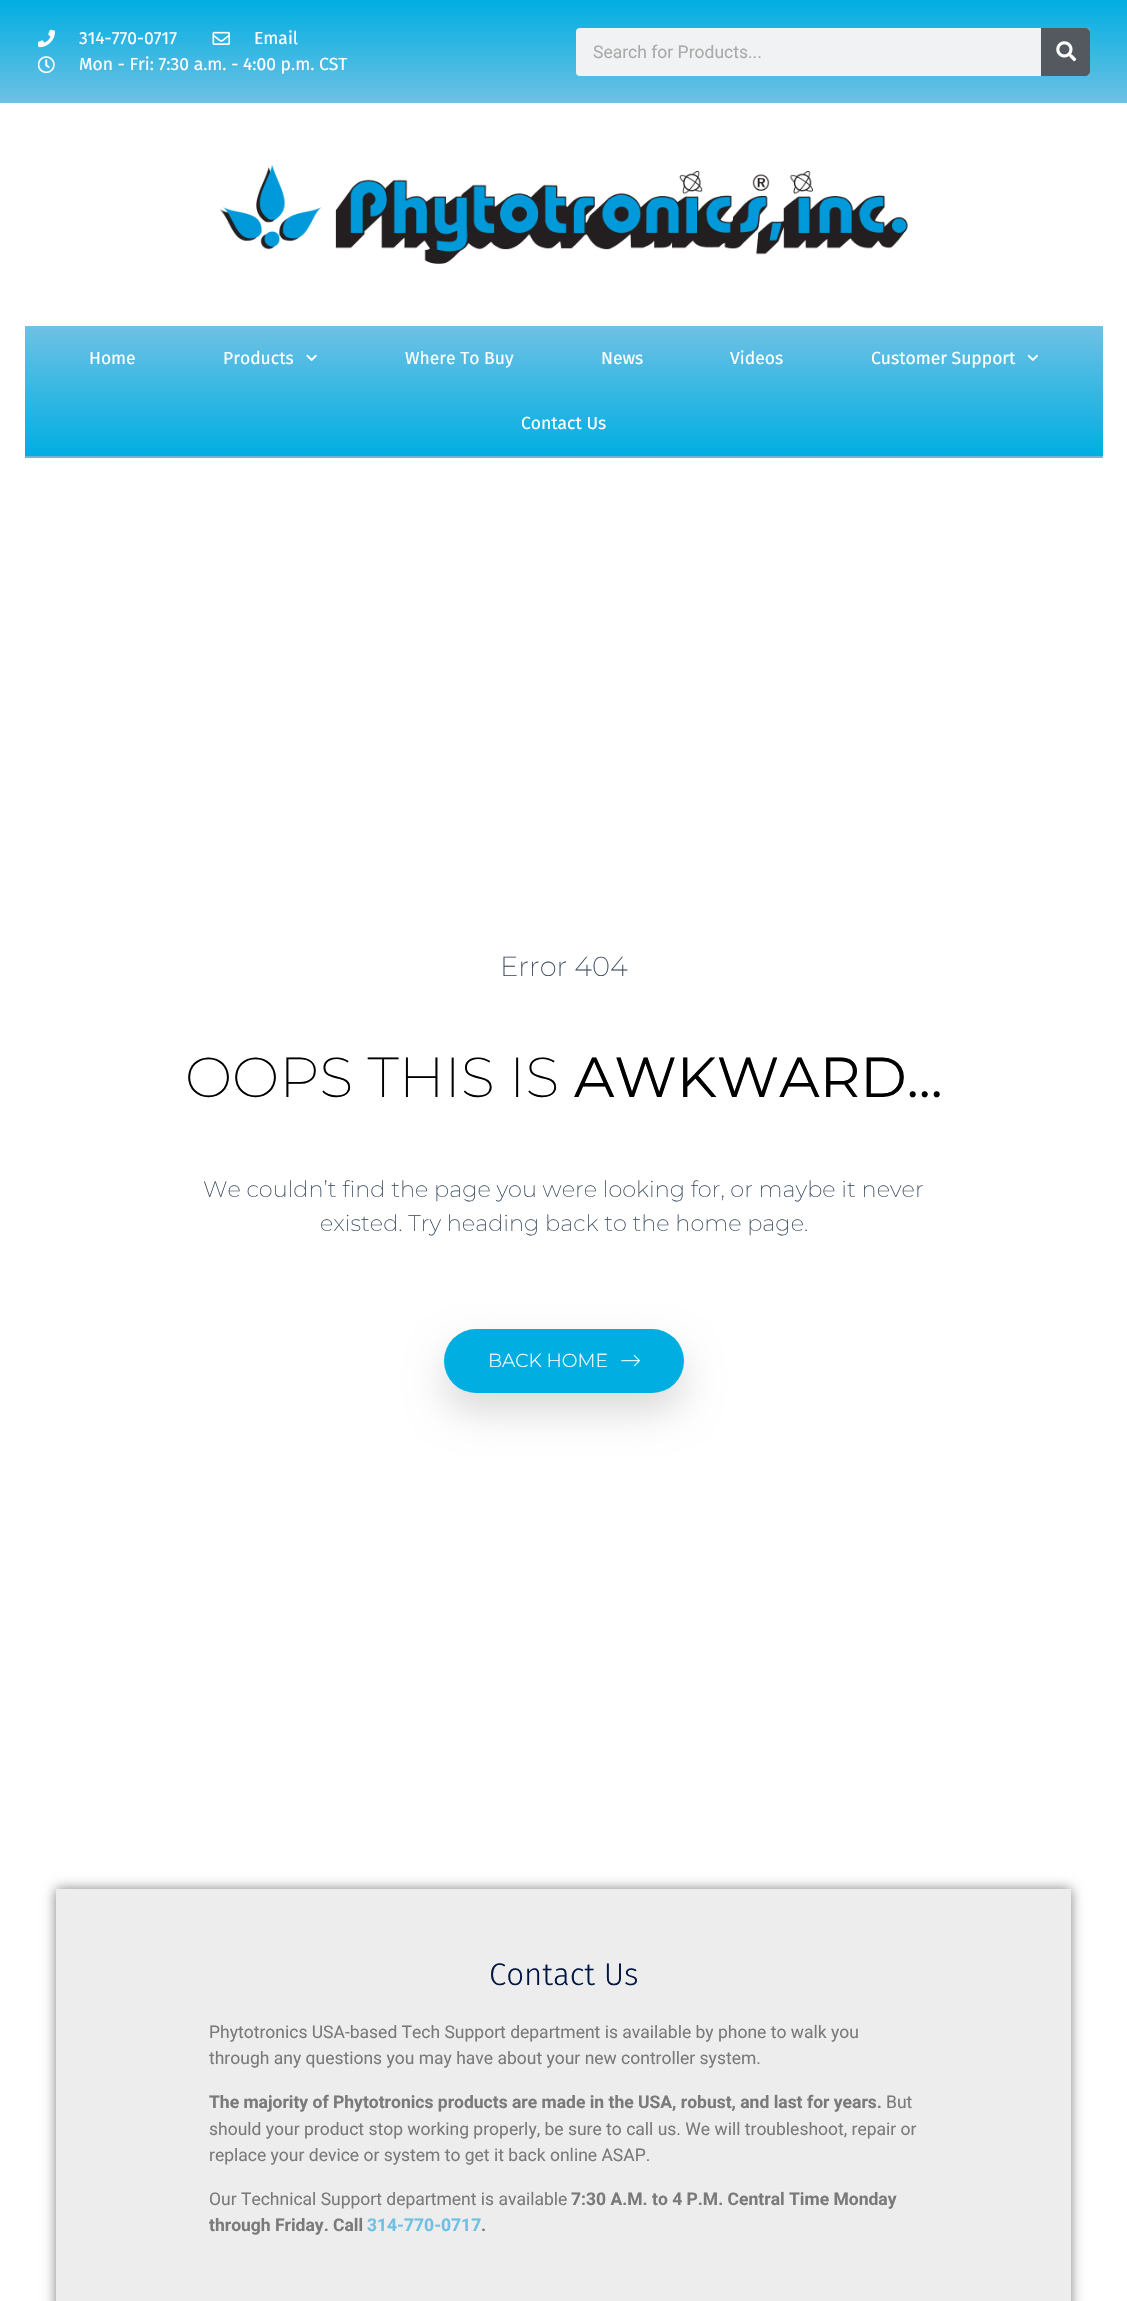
#include "include/core/SkBlurTypes.h"
#include "include/core/SkCanvas.h"
#include "include/core/SkData.h"
#include "include/core/SkFont.h"
#include "include/core/SkFontMgr.h"
#include "include/core/SkImage.h"
#include "include/core/SkMaskFilter.h"
#include "include/core/SkPaint.h"
#include "include/core/SkPathBuilder.h"
#include "include/core/SkTextBlob.h"
#include "include/effects/SkDashPathEffect.h"
#include "include/effects/SkGradientShader.h"
#include "include/utils/SkParsePath.h"

extern sk_sp<SkFontMgr> fontMgr;

void draw(SkCanvas* canvas) {
    SkPaint p;
    p.setAntiAlias(true);
    auto font = [&](const char* family, int weight, float size, bool italic = false) {
        SkFontStyle style(weight, SkFontStyle::kNormal_Width,
            italic ? SkFontStyle::kItalic_Slant : SkFontStyle::kUpright_Slant);
        SkFont result(fontMgr->matchFamilyStyle(family, style), size);
        result.setSubpixel(true);
        return result;
    };
    auto drawPhoto = [&](const char* path, float l, float t, float r, float b) {
        auto image = SkImages::DeferredFromEncodedData(SkData::MakeFromFileName(path));
        canvas->drawImageRect(image, SkRect::MakeLTRB(l, t, r, b), SkSamplingOptions());
    };
    canvas->clear(0xFFFFFFFF);
    {
        const SkColor colors[] = {0xFF00AEE2, 0xFF6EC1E4};
        const float stops[] = {0, 1};
        const SkPoint ends[] = {{564, 0}, {564, 103}};
        p.setShader(SkGradientShader::MakeLinear(ends, colors, stops, 2, SkTileMode::kClamp));
        p.setAlpha(255);
    }
    canvas->drawRect(SkRect::MakeLTRB(0, 0, 1127, 103), p);
    drawPhoto("media/1.png", 38, 29, 55, 48);
    auto font1 = font("Fira Sans", 400, 17.5f);
    p.setShader(nullptr);
    p.setColor(0xFFFFFFFF);
    canvas->drawString("314-770-0717", 79, 44, font1, p);
    drawPhoto("media/2.png", 212, 31, 230, 45);
    canvas->drawString("Email", 254, 44, font1, p);
    drawPhoto("media/3.png", 38, 56, 55, 74);
    canvas->drawString("Mon - Fri: 7:30 a.m. - 4:00 p.m. CST", 79, 70, font1, p);
    p.setColor(0xFFF1F2F3);
    canvas->drawRoundRect(SkRect::MakeLTRB(576, 28, 1090, 76), 4, 4, p);
    auto font2 = font("Roboto", 400, 17.5f);
    p.setColor(0xFFAAAAAA);
    canvas->drawString("Search for Products...", 593, 58, font2, p);
    p.setColor(0xFF54595F);
    canvas->drawPath(SkPathBuilder().moveTo(1041, 28).lineTo(1086, 28).cubicTo(1088, 28, 1090, 30, 1090, 32).lineTo(1090, 72).cubicTo(1090, 74, 1088, 76, 1086, 76).lineTo(1041, 76).close().detach(), p);
    drawPhoto("media/4.png", 1056, 41, 1077, 62);
    drawPhoto("media/5.png", 220, 165, 908, 264);
    {
        const SkColor colors[] = {0xFF6EC1E4, 0xFF00AEE2};
        const float stops[] = {0, 1};
        const SkPoint ends[] = {{564, 326}, {564, 456}};
        p.setShader(SkGradientShader::MakeLinear(ends, colors, stops, 2, SkTileMode::kClamp));
        p.setAlpha(255);
    }
    canvas->drawRect(SkRect::MakeLTRB(25, 326, 1103, 456), p);
    {
        const SkColor colors[] = {0xFF6EC1E4, 0xFF00AEE2};
        const float stops[] = {0, 1};
        const SkPoint ends[] = {{564, 456}, {564, 586}};
        p.setShader(SkGradientShader::MakeLinear(ends, colors, stops, 2, SkTileMode::kClamp));
        p.setAlpha(255);
    }
    canvas->drawRect(SkRect::MakeLTRB(25, 456, 1103, 458), p);
    p.setStyle(SkPaint::kStroke_Style);
    p.setStrokeWidth(1.2f);
    p.setShader(nullptr);
    p.setColor(0xFF8E8E8E);
    p.setPathEffect(SkDashPathEffect::Make({{1.25f, 1.25f}}, 0));
    canvas->drawPath(SkPathBuilder().moveTo(25, 457).lineTo(1102.5f, 457).detach(), p);
    p.setPathEffect(nullptr);
    p.setStyle(SkPaint::kFill_Style);
    p.setColor(0xFFFFFFFF);
    canvas->drawString("Home", 89, 364, font1, p);
    canvas->drawString("Products", 223, 364, font1, p);
    drawPhoto("media/6.png", 306, 354, 317, 361);
    {
        const struct { const char* s; float x, y; } items[] = {
            {"Where To Buy", 405, 364},
            {"News", 601, 364},
            {"Videos", 730, 364},
            {"Customer Support", 871, 364},
        };
        for (auto [s, x, y] : items) {
            canvas->drawString(s, x, y, font1, p);
        }
    }
    drawPhoto("media/7.png", 1027, 354, 1038, 361);
    canvas->drawString("Contact Us", 521, 429, font1, p);
    auto font3 = font("Montserrat", 200, 27.5f);
    p.setColor(0xFF3D4E60);
    canvas->drawString("Error 404", 500, 976, font3, p);
    auto font4 = font("Montserrat", 200, 56.25f);
    p.setColor(0xFF000000);
    canvas->drawString("OOPS THIS IS", 185, 1097, font4, p);
    auto font5 = font("Montserrat", 400, 56.25f);
    canvas->drawString("AWKWARD...", 574, 1097, font5, p);
    auto font6 = font("Montserrat", 200, 22.5f);
    p.setColor(0xFF3D4E60);
    canvas->drawString("We couldn’t find the page you were looking for, or maybe it never", 203, 1197, font6, p);
    canvas->drawString("existed. Try heading back to the home page.", 320, 1231, font6, p);
    p.setColor(0x26000000);
    p.setMaskFilter(SkMaskFilter::MakeBlur(kNormal_SkBlurStyle, 19));
    canvas->drawRoundRect(SkRect::MakeLTRB(444, 1348, 684, 1411), 31.5f, 31.5f, p);
    p.setMaskFilter(nullptr);
    p.setColor(0xFF00AEE2);
    canvas->drawRoundRect(SkRect::MakeLTRB(444, 1329, 684, 1393), 32, 32, p);
    auto font7 = font("Montserrat", 300, 18.75f);
    p.setColor(0xFFFFFFFF);
    canvas->drawString("BACK HOME", 488, 1367, font7, p);
    drawPhoto("media/8.png", 621, 1355, 640, 1366);
    p.setColor(0x80000000);
    p.setMaskFilter(SkMaskFilter::MakeBlur(kNormal_SkBlurStyle, 6));
    canvas->drawRect(SkRect::MakeLTRB(56, 1889, 1071, 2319), p);
    p.setMaskFilter(nullptr);
    p.setColor(0xFFEDEDED);
    canvas->drawRect(SkRect::MakeLTRB(56, 1889, 1071, 2301), p);
    auto font8 = font("Fira Sans", 300, 31.25f);
    p.setColor(0xFF011640);
    canvas->drawString("Contact Us", 489, 1985, font8, p);
    p.setColor(0xFF7A7A7A);
    canvas->drawString("Phytotronics USA-based Tech Support department is available by phone to walk you", 209, 2038, font2, p);
    canvas->drawString("through any questions you may have about your new controller system.", 209, 2064, font2, p);
    auto font9 = font("Roboto", 700, 17.5f);
    canvas->drawString("The majority of Phytotronics products are made in the USA, robust, and last for years.", 209, 2108, font9, p);
    {
        const struct { const char* s; float x, y; } items[] = {
            {"But", 886, 2108},
            {"should your product stop working properly, be sure to call us. We will troubleshoot, repair or", 209, 2135},
            {"replace your device or system to get it back online ASAP.", 209, 2161},
            {"Our Technical Support department is available", 209, 2205},
        };
        for (auto [s, x, y] : items) {
            canvas->drawString(s, x, y, font2, p);
        }
    }
    canvas->drawString("7:30 A.M. to 4 P.M. Central Time Monday", 571, 2205, font9, p);
    canvas->drawString("through Friday. Call", 209, 2231, font9, p);
    p.setColor(0xFF6EC1E4);
    canvas->drawString("314-770-0717", 367, 2231, font9, p);
    p.setColor(0xFF7A7A7A);
    canvas->drawString(".", 481, 2231, font9, p);
}
